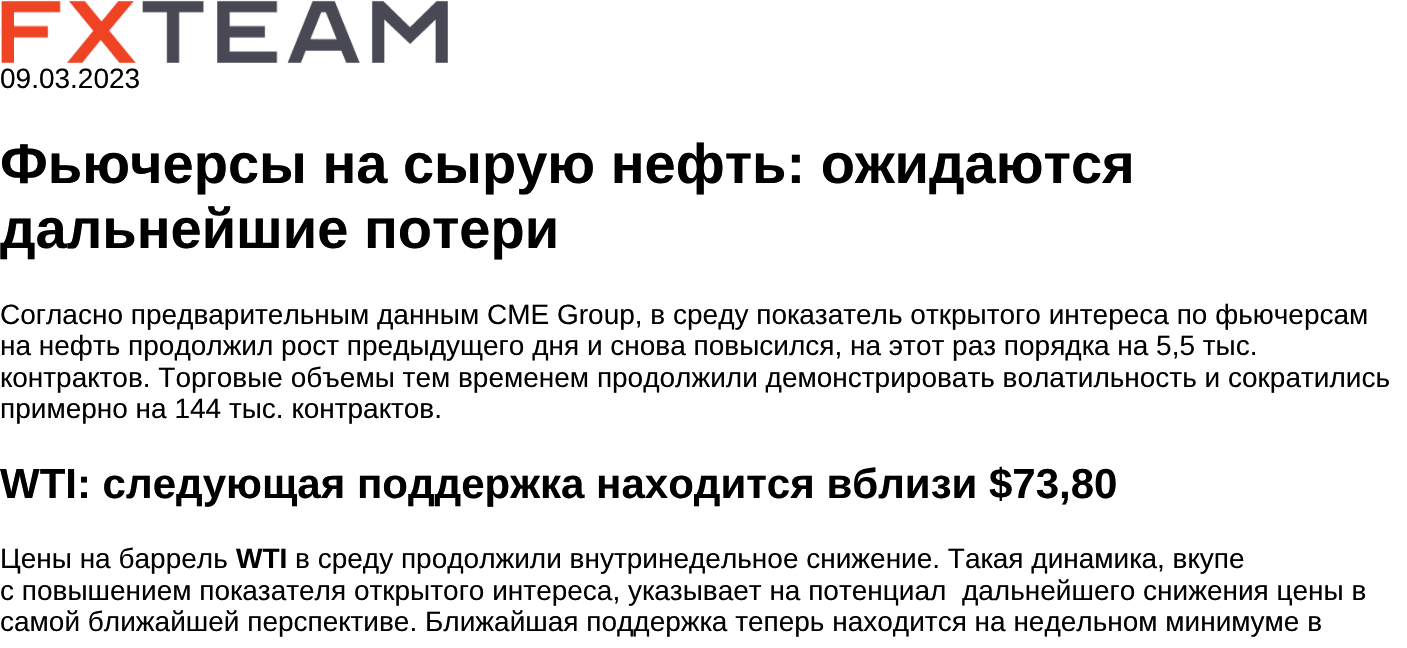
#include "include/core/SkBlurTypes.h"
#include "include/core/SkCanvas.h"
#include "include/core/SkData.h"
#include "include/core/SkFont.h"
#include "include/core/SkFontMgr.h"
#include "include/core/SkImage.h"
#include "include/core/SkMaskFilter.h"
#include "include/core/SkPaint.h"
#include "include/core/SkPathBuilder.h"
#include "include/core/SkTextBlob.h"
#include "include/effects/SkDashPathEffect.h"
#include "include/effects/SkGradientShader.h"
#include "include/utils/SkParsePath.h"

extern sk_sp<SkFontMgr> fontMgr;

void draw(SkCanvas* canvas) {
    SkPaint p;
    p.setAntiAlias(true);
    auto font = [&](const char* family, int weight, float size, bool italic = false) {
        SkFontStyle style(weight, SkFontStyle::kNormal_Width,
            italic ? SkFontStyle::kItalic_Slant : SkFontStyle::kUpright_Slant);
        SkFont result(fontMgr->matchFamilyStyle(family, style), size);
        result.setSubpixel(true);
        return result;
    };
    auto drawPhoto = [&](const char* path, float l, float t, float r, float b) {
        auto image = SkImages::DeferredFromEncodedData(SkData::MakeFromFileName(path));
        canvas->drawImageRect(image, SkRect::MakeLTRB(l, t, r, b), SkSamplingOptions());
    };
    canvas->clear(0xFFFFFFFF);
    drawPhoto("media/1.png", 1, 0, 448, 63);
    auto font1 = font("Liberation Sans", 400, 28);
    p.setColor(0xFF000000);
    canvas->drawString("09.03.2023", 0, 88, font1, p);
    auto font2 = font("Liberation Sans", 700, 56);
    canvas->drawString("Фьючерсы на сырую нефть: ожидаются", 0, 183, font2, p);
    canvas->drawString("дальнейшие потери", 0, 248, font2, p);
    {
        const struct { const char* s; float x, y; } items[] = {
            {"Согласно предварительным данным CME Group, в среду показатель открытого интереса по фьючерсам", 0, 324},
            {"на нефть продолжил рост предыдущего дня и снова повысился, на этот раз порядка на 5,5 тыс.", 0, 355},
            {"контрактов. Торговые объемы тем временем продолжили демонстрировать волатильность и сократились", 0, 387},
            {"примерно на 144 тыс. контрактов.", 0, 418},
        };
        for (auto [s, x, y] : items) {
            canvas->drawString(s, x, y, font1, p);
        }
    }
    auto font3 = font("Liberation Sans", 700, 42);
    canvas->drawString("WTI: следующая поддержка находится вблизи $73,80", 0, 498, font3, p);
    canvas->drawString("Цены на баррель", 0, 568, font1, p);
    auto font4 = font("Liberation Sans", 700, 28);
    canvas->drawString("WTI", 236, 568, font4, p);
    {
        const struct { const char* s; float x, y; } items[] = {
            {"в среду продолжили внутринедельное снижение. Такая динамика, вкупе", 295, 568},
            {"с повышением показателя открытого интереса, указывает на потенциал  дальнейшего снижения цены в", 0, 600},
            {"самой ближайшей перспективе. Ближайшая поддержка теперь находится на недельном минимуме в", 0, 631},
        };
        for (auto [s, x, y] : items) {
            canvas->drawString(s, x, y, font1, p);
        }
    }
}
